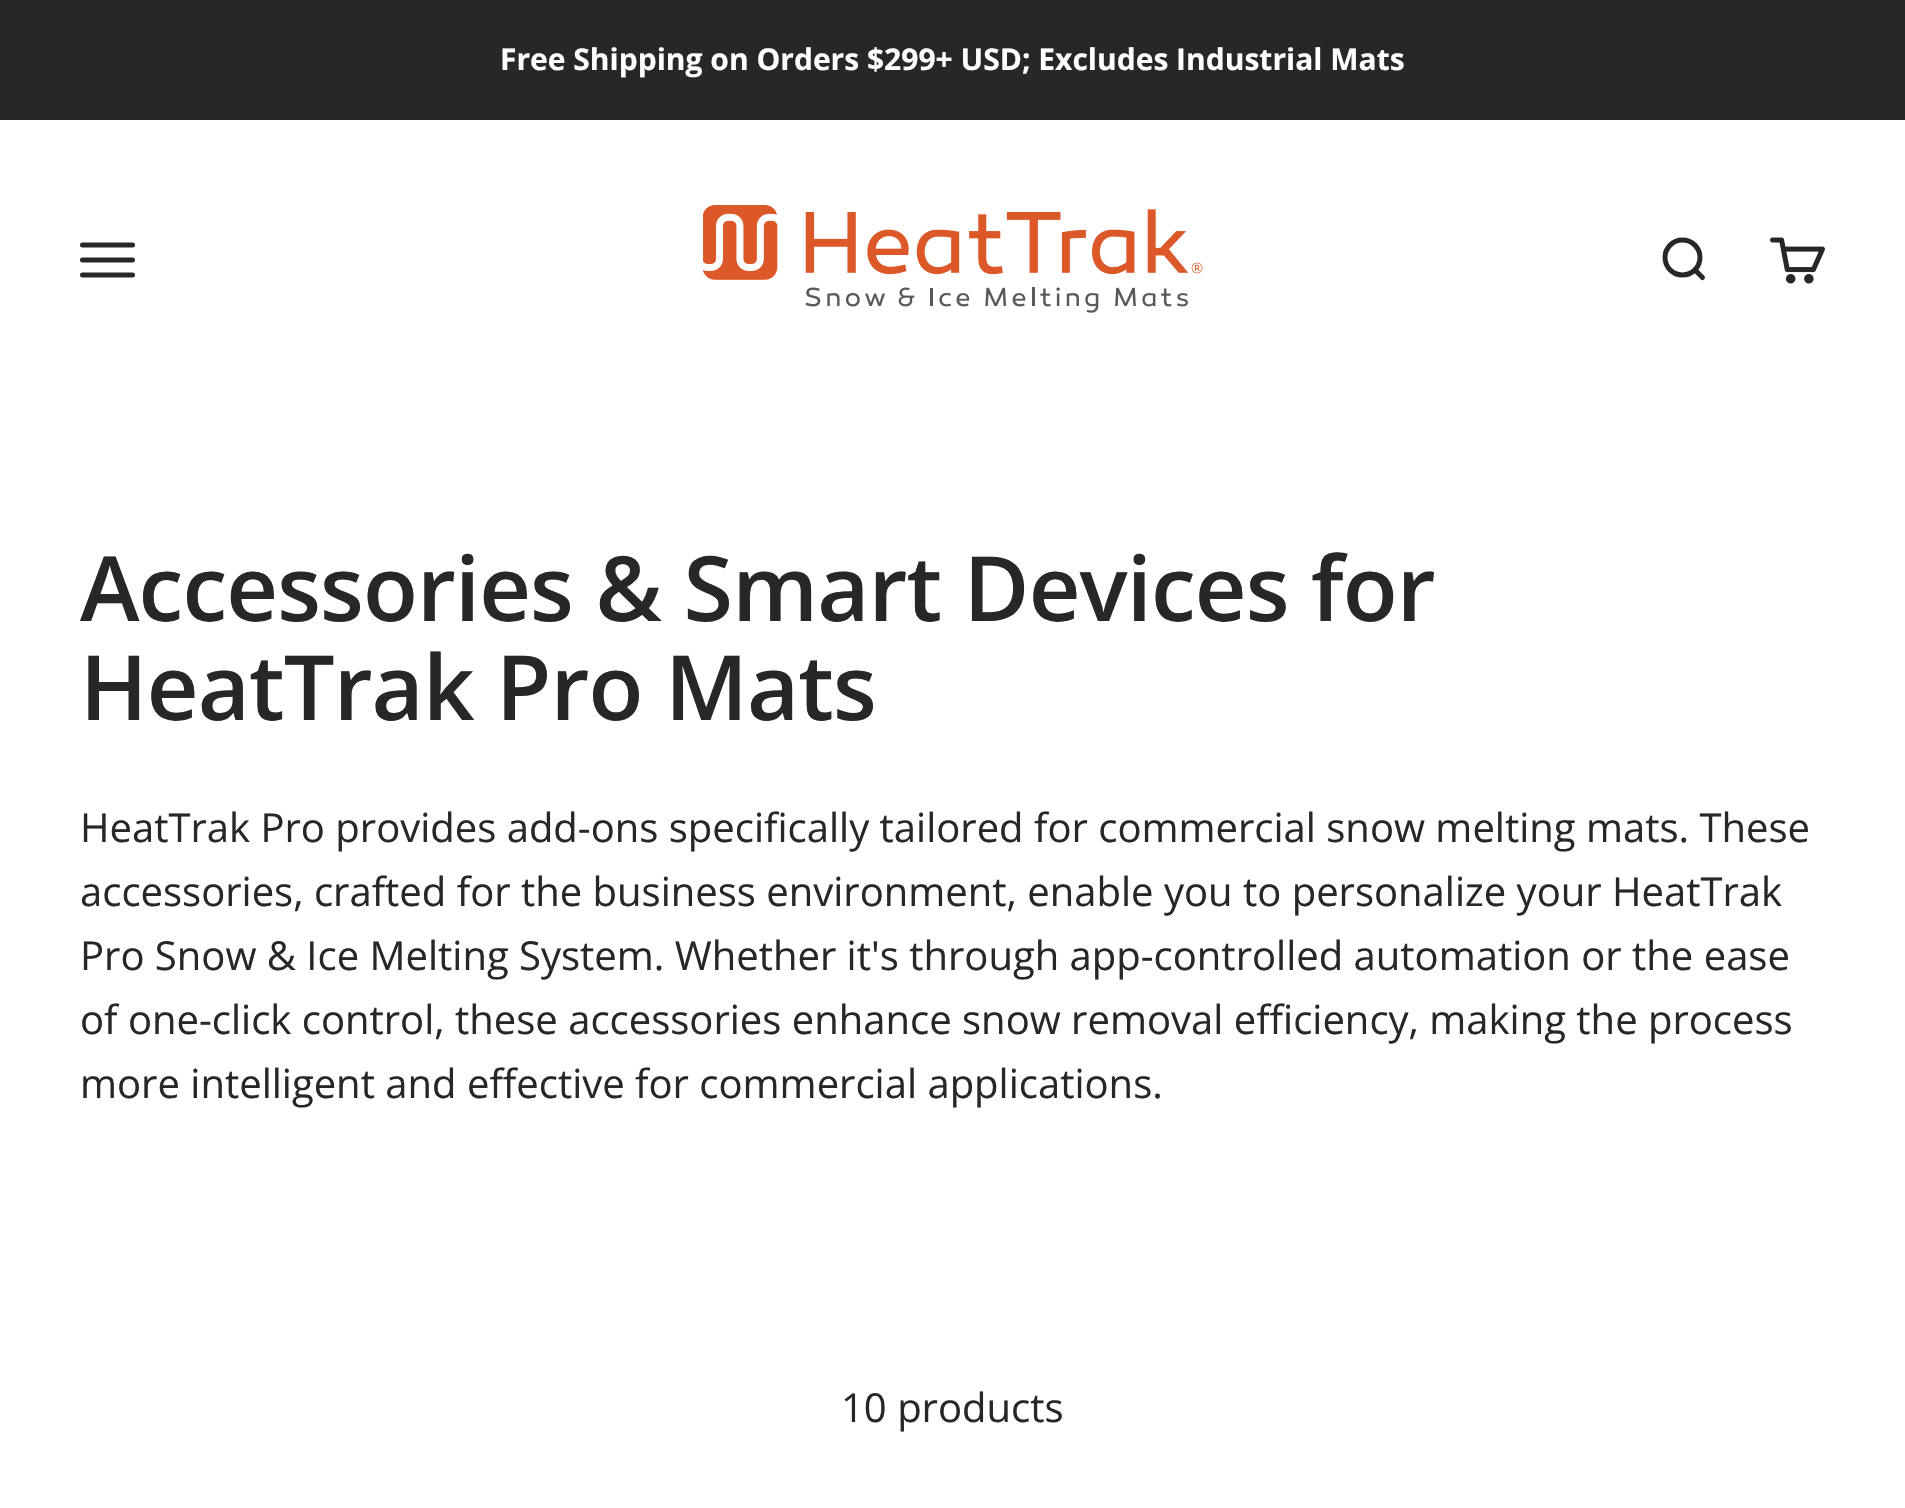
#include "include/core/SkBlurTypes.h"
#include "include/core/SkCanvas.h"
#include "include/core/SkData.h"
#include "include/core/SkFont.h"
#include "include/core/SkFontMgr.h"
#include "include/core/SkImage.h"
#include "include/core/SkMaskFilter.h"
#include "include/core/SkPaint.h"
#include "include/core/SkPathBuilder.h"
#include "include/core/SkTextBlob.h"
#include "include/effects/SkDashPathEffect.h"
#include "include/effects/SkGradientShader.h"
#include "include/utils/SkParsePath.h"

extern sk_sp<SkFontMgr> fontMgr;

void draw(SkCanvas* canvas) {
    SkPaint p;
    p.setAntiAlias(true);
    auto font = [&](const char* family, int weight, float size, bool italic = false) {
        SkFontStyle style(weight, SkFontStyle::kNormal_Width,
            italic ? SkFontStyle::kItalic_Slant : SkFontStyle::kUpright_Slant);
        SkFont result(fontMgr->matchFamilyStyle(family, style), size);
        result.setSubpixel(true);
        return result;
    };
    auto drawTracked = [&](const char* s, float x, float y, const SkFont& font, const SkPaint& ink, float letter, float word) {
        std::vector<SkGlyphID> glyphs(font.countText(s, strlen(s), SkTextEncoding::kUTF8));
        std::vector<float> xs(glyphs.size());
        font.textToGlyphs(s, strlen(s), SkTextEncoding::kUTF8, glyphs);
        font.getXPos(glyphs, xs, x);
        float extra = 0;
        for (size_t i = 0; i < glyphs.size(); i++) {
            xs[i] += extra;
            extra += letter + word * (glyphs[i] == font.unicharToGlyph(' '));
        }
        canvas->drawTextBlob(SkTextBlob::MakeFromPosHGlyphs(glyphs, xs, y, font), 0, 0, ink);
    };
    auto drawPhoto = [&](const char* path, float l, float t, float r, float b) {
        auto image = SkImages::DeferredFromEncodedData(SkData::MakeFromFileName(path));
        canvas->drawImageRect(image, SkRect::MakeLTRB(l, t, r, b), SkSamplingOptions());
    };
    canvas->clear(0xFFFFFFFF);
    p.setColor(0xFF272727);
    canvas->drawRect(SkRect::MakeLTRB(0, 0, 1905, 120), p);
    auto font1 = font("Open Sans", 700, 30);
    p.setColor(0xFFFFFFFF);
    canvas->drawString("Free Shipping on Orders $299+ USD; Excludes Industrial Mats", 500, 70, font1, p);
    p.setStyle(SkPaint::kStroke_Style);
    p.setStrokeWidth(5);
    p.setStrokeCap(SkPaint::kRound_Cap);
    p.setColor(0xFF272727);
    canvas->drawPath(SkPathBuilder().moveTo(82.5f, 245).lineTo(132.5f, 245).moveTo(82.5f, 260).lineTo(132.5f, 260).moveTo(82.5f, 275).lineTo(132.5f, 275).detach(), p);
    drawPhoto("media/1.png", 703, 205, 1203, 313);
    p.setStrokeCap(SkPaint::kButt_Cap);
    canvas->drawCircle(1682.5f, 257.5f, 17.5f, p);
    p.setStrokeCap(SkPaint::kRound_Cap);
    p.setStrokeJoin(SkPaint::kRound_Join);
    canvas->drawPath(SkPathBuilder().moveTo(1695, 270).lineTo(1702.5f, 277.5f).detach(), p);
    drawPhoto("media/2.png", 1770, 237, 1825, 284);
    auto font2 = font("Open Sans", 600, 90);
    p.setStyle(SkPaint::kFill_Style);
    drawTracked("Accessories & Smart Devices for", 80, 621, font2, p, -0.9f, 0);
    drawTracked("HeatTrak Pro Mats", 80, 720, font2, p, -0.9f, 0);
    auto font3 = font("Open Sans", 400, 40);
    {
        const struct { const char* s; float x, y; } items[] = {
            {"HeatTrak Pro provides add-ons specifically tailored for commercial snow melting mats. These", 80, 842},
            {"accessories, crafted for the business environment, enable you to personalize your HeatTrak", 80, 906},
            {"Pro Snow & Ice Melting System. Whether it's through app-controlled automation or the ease", 80, 970},
            {"of one-click control, these accessories enhance snow removal efficiency, making the process", 80, 1034},
            {"more intelligent and effective for commercial applications.", 80, 1098},
            {"10 products", 841, 1422},
        };
        for (auto [s, x, y] : items) {
            canvas->drawString(s, x, y, font3, p);
        }
    }
}
